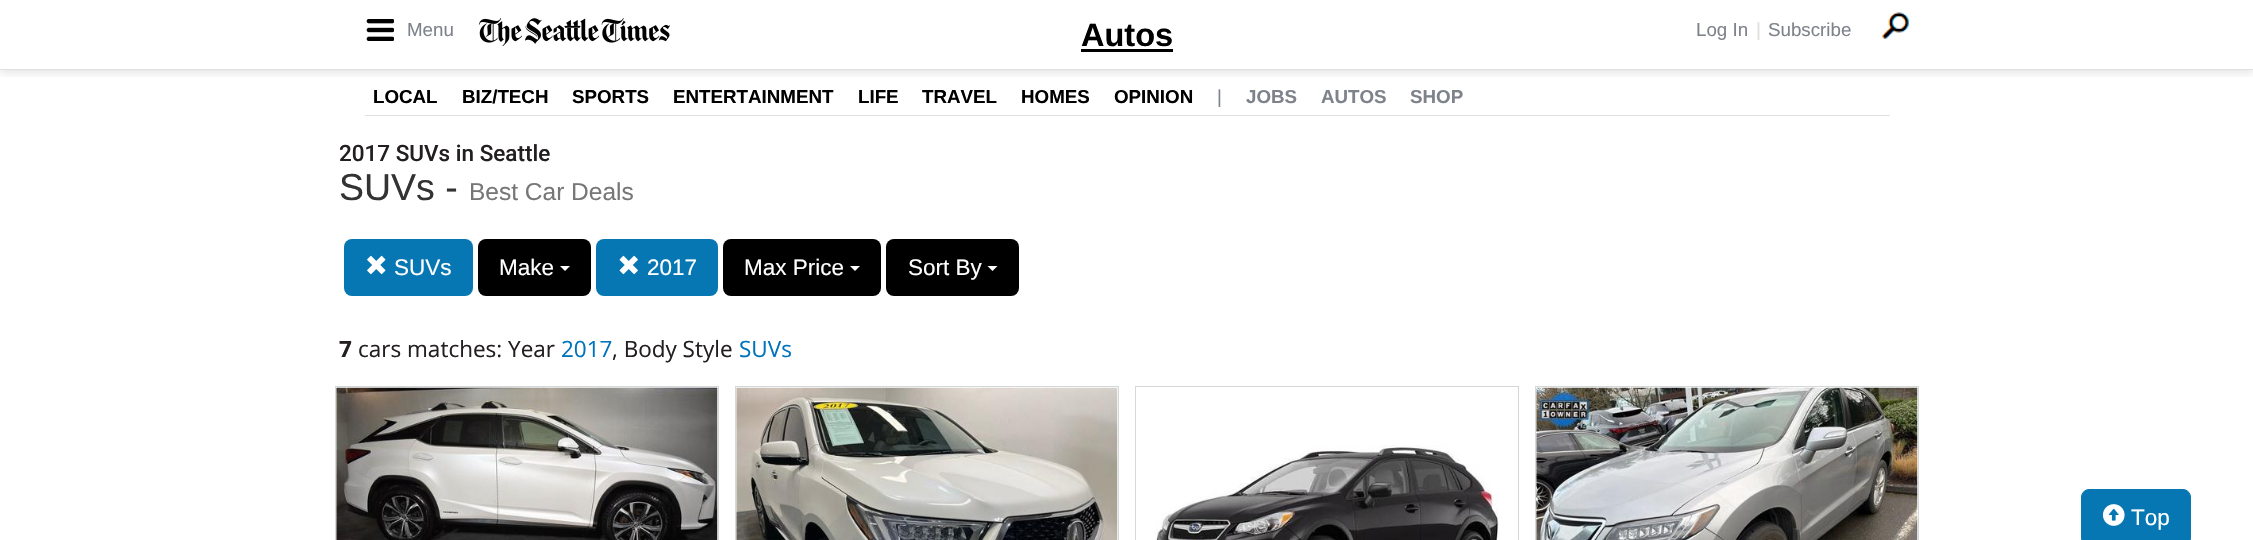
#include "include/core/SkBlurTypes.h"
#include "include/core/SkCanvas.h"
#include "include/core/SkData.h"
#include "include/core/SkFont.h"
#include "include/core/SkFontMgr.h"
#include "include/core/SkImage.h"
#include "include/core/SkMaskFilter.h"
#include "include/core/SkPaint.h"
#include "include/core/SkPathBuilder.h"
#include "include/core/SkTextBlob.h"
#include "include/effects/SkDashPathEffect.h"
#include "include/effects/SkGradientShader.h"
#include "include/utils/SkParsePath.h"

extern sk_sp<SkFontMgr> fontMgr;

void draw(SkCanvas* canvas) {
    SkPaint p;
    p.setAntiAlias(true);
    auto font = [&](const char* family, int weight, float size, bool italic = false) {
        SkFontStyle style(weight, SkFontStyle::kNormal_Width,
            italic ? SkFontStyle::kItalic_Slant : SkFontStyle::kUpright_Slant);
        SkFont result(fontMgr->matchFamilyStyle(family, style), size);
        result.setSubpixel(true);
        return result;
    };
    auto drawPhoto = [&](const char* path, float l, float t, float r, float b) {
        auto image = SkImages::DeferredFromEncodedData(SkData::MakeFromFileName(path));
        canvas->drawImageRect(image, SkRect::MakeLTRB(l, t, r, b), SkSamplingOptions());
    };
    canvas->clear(0xFFFFFFFF);
    canvas->save();
    canvas->clipRect(SkRect::MakeLTRB(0, 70, 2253, 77));
    p.setColor(0x1A000000);
    p.setMaskFilter(SkMaskFilter::MakeBlur(kNormal_SkBlurStyle, 4.5f));
    canvas->drawRect(SkRect::MakeLTRB(0, 3, 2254, 73), p);
    p.setMaskFilter(nullptr);
    canvas->restore();
    p.setColor(0xFFE0E0E0);
    canvas->drawRect(SkRect::MakeLTRB(0, 69, 2253, 70), p);
    drawPhoto("media/1.png", 366, 19, 394, 41);
    auto font1 = font("Liberation Sans", 400, 18.75f);
    p.setColor(0xFF7E838B);
    canvas->drawString("Menu", 407, 36, font1, p);
    drawPhoto("media/2.png", 479, 18, 670, 46);
    canvas->drawString("Log In", 1696, 36, font1, p);
    p.setColor(0xFFE0E0E0);
    canvas->drawString("|", 1756, 36, font1, p);
    p.setColor(0xFF7E838B);
    canvas->drawString("Subscribe", 1768, 36, font1, p);
    drawPhoto("media/3.png", 1882, 12, 1909, 39);
    auto font2 = font("Liberation Sans", 700, 32.5f);
    p.setColor(0xFF000000);
    canvas->drawString("Autos", 1081, 46, font2, p);
    canvas->drawRect(SkRect::MakeLTRB(1081, 49, 1173, 52), p);
    p.setColor(0xFFE0E0E0);
    canvas->drawRect(SkRect::MakeLTRB(365, 115, 1890, 116), p);
    auto font3 = font("Liberation Sans", 700, 18.75f);
    p.setColor(0xFF000000);
    {
        const struct { const char* s; float x, y; } items[] = {
            {"LOCAL", 373, 103},
            {"BIZ/TECH", 462, 103},
            {"SPORTS", 572, 103},
            {"ENTERTAINMENT", 673, 103},
            {"LIFE", 858, 103},
            {"TRAVEL", 922, 103},
            {"HOMES", 1021, 103},
            {"OPINION", 1114, 103},
        };
        for (auto [s, x, y] : items) {
            canvas->drawString(s, x, y, font3, p);
        }
    }
    p.setColor(0xFF7E838B);
    canvas->drawString("|", 1217, 103, font1, p);
    {
        const struct { const char* s; float x, y; } items[] = {
            {"JOBS", 1246, 103},
            {"AUTOS", 1321, 103},
            {"SHOP", 1410, 103},
        };
        for (auto [s, x, y] : items) {
            canvas->drawString(s, x, y, font3, p);
        }
    }
    auto font4 = font("Roboto", 500, 22.5f);
    p.setColor(0xFF231F20);
    canvas->drawString("2017 SUVs in Seattle", 339, 161, font4, p);
    auto font5 = font("Liberation Sans", 400, 37.5f);
    p.setColor(0xFF333333);
    canvas->drawString("SUVs -", 339, 200, font5, p);
    auto font6 = font("Liberation Sans", 400, 24.5f);
    p.setColor(0xFF777777);
    canvas->drawString("Best Car Deals", 469, 200, font6, p);
    p.setColor(0xFF0777B3);
    canvas->drawRoundRect(SkRect::MakeLTRB(344, 239, 473, 296), 8, 8, p);
    drawPhoto("media/4.png", 367, 255, 386, 275);
    auto font7 = font("Liberation Sans", 400, 22.5f);
    p.setColor(0xFFFFFFFF);
    canvas->drawString("SUVs", 394, 275, font7, p);
    p.setColor(0xFF000000);
    canvas->drawRoundRect(SkRect::MakeLTRB(478, 239, 591, 296), 8, 8, p);
    p.setColor(0xFFFFFFFF);
    canvas->drawString("Make", 499, 275, font7, p);
    canvas->drawPath(SkPathBuilder().moveTo(560, 266).lineTo(570, 266).lineTo(565, 271).close().detach(), p);
    p.setColor(0xFF0777B3);
    canvas->drawRoundRect(SkRect::MakeLTRB(596, 239, 718, 296), 8, 8, p);
    drawPhoto("media/5.png", 619, 255, 638, 275);
    p.setColor(0xFFFFFFFF);
    canvas->drawString("2017", 647, 275, font7, p);
    p.setColor(0xFF000000);
    canvas->drawRoundRect(SkRect::MakeLTRB(723, 239, 881, 296), 8, 8, p);
    p.setColor(0xFFFFFFFF);
    canvas->drawString("Max Price", 744, 275, font7, p);
    canvas->drawPath(SkPathBuilder().moveTo(850, 266).lineTo(860, 266).lineTo(855, 271).close().detach(), p);
    p.setColor(0xFF000000);
    canvas->drawRoundRect(SkRect::MakeLTRB(886, 239, 1019, 296), 8, 8, p);
    p.setColor(0xFFFFFFFF);
    canvas->drawString("Sort By", 908, 275, font7, p);
    canvas->drawPath(SkPathBuilder().moveTo(987.5f, 266).lineTo(997.5f, 266).lineTo(992.5f, 271).close().detach(), p);
    auto font8 = font("Open Sans", 700, 22.5f);
    p.setColor(0xFF231F20);
    canvas->drawString("7", 339, 357, font8, p);
    auto font9 = font("Open Sans", 400, 22.5f);
    canvas->drawString("cars matches: Year", 358, 357, font9, p);
    p.setColor(0xFF0073BD);
    canvas->drawString("2017", 561, 357, font9, p);
    p.setColor(0xFF231F20);
    canvas->drawString(", Body Style", 612, 357, font9, p);
    p.setColor(0xFF0073BD);
    canvas->drawString("SUVs", 739, 357, font9, p);
    p.setStyle(SkPaint::kStroke_Style);
    p.setStrokeWidth(1);
    p.setColor(0xFFD4D8D9);
    canvas->drawRect(SkRect::MakeLTRB(335.5f, 386.5f, 718.5f, 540.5f), p);
    drawPhoto("media/6.png", 336, 387, 718, 540);
    canvas->drawRect(SkRect::MakeLTRB(735.5f, 386.5f, 1118.5f, 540.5f), p);
    drawPhoto("media/7.png", 736, 387, 1118, 540);
    canvas->drawRect(SkRect::MakeLTRB(1135.5f, 386.5f, 1518.5f, 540.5f), p);
    drawPhoto("media/8.png", 1155, 445, 1499, 540);
    canvas->drawRect(SkRect::MakeLTRB(1535.5f, 386.5f, 1918.5f, 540.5f), p);
    drawPhoto("media/9.png", 1536, 387, 1918, 540);
    p.setStyle(SkPaint::kFill_Style);
    p.setColor(0xFF0777B3);
    canvas->drawRoundRect(SkRect::MakeLTRB(2081.5f, 489.5f, 2190.5f, 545.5f), 7.5f, 7.5f, p);
    p.setStyle(SkPaint::kStroke_Style);
    canvas->drawRoundRect(SkRect::MakeLTRB(2081.5f, 489.5f, 2190.5f, 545.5f), 7.5f, 7.5f, p);
    drawPhoto("media/10.png", 2102, 504, 2125, 526);
    p.setStyle(SkPaint::kFill_Style);
    p.setColor(0xFFFFFFFF);
    canvas->drawString("Top", 2131, 525, font7, p);
}
